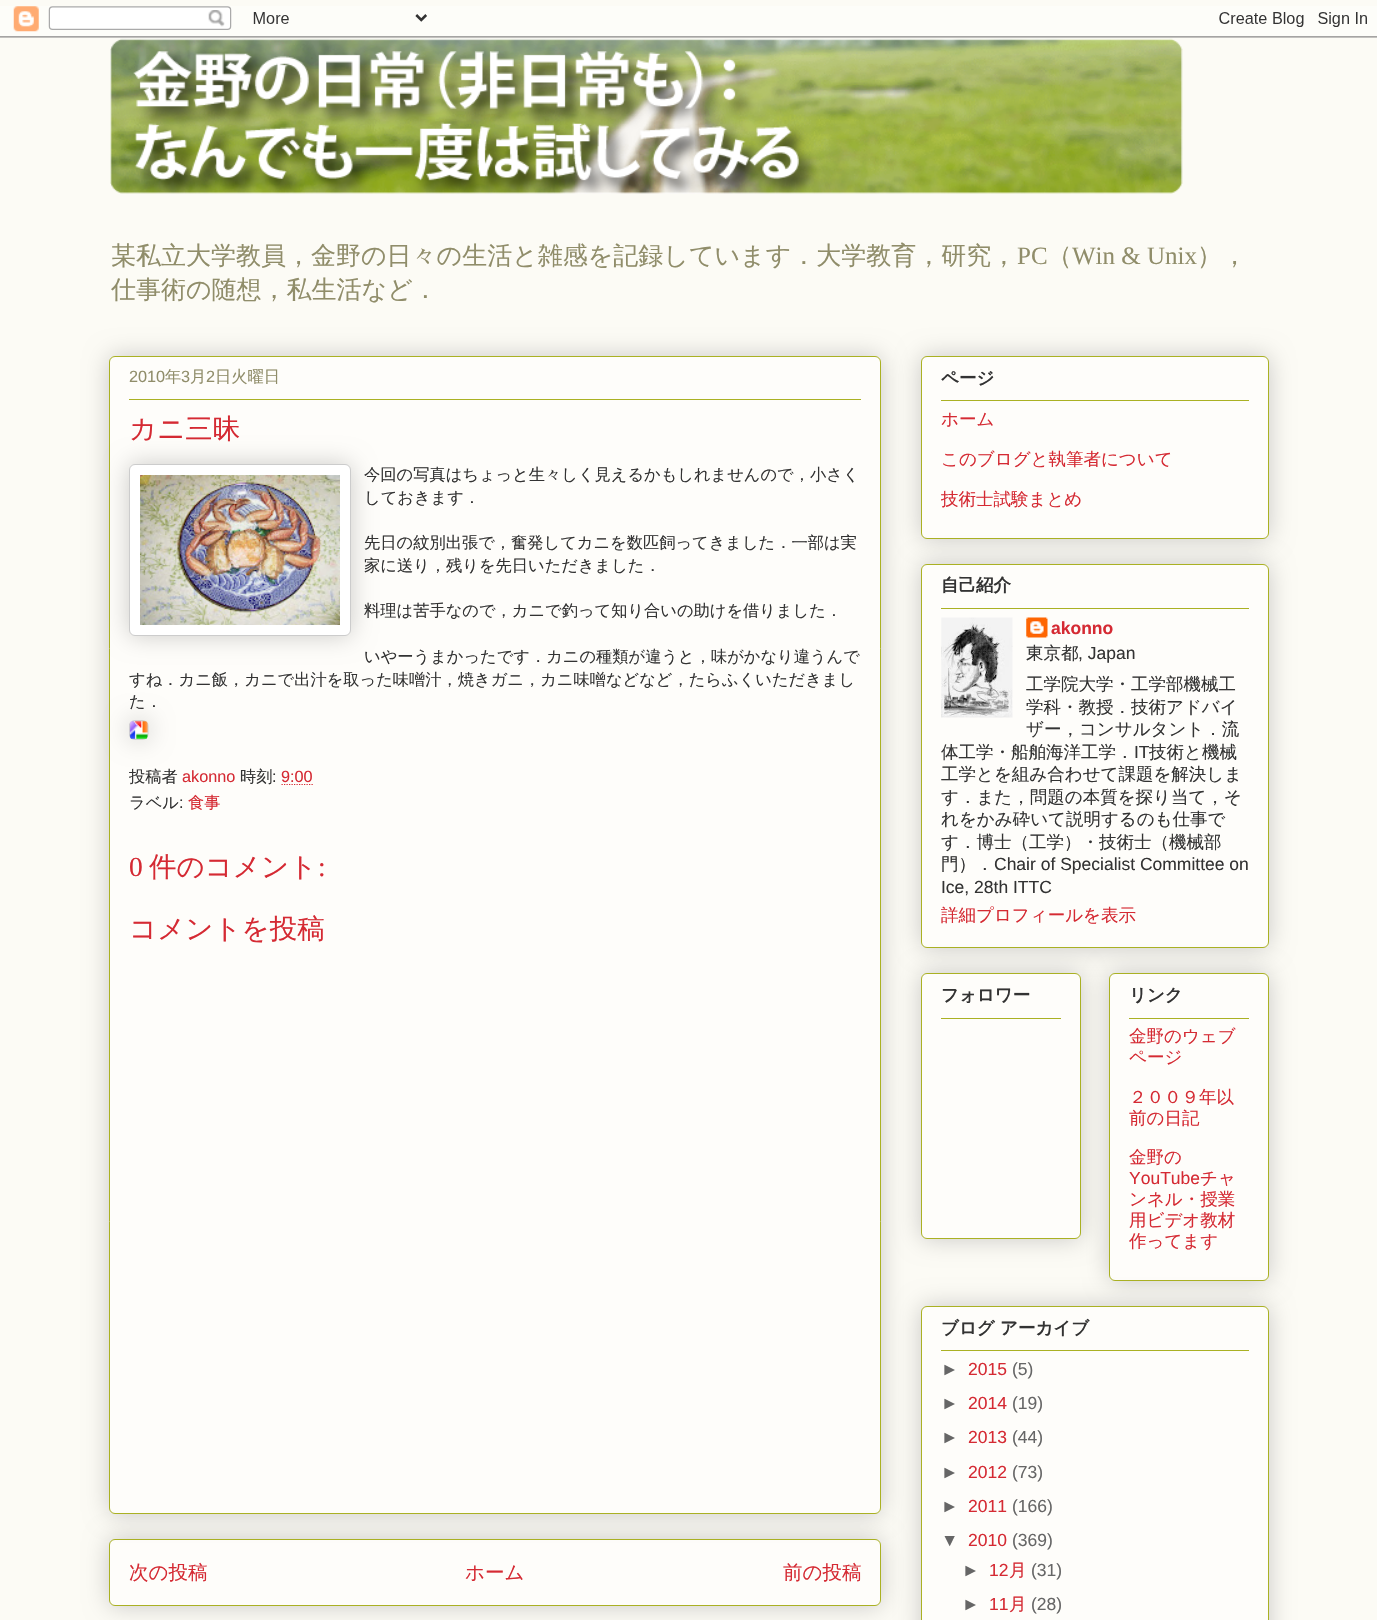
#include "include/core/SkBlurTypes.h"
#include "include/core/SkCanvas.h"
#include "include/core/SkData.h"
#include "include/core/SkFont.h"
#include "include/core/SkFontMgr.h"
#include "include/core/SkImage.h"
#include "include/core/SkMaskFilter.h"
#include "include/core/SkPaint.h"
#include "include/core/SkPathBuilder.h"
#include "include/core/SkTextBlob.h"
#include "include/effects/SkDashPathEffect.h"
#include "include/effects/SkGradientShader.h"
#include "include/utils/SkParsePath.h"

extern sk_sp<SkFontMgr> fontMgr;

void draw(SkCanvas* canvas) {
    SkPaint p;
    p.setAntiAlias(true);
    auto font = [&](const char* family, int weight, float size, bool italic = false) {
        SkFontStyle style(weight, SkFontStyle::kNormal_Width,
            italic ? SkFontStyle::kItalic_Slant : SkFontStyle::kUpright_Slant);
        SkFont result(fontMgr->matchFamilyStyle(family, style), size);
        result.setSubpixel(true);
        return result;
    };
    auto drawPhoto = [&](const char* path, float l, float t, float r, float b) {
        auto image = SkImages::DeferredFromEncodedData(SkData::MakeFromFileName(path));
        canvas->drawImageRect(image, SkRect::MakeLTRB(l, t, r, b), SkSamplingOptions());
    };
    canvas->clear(0xFFFCFBF5);
    drawPhoto("media/1.png", 0, 6, 1377, 38);
    drawPhoto("media/2.png", 110, 38, 1183, 194);
    auto font1 = font("WenQuanYi Zen Hei", 500, 25);
    p.setColor(0xFF908D6A);
    canvas->drawString("某私立大学教員，金野の日々の生活と雑感を記録しています．大学教育，研究，", 111, 264, font1, p);
    auto font2 = font("Liberation Serif", 400, 25);
    canvas->drawString("PC", 1017, 264, font2, p);
    canvas->drawString("（", 1047, 264, font1, p);
    canvas->drawString("Win & Unix", 1072, 264, font2, p);
    canvas->drawString("），", 1197, 264, font1, p);
    canvas->drawString("仕事術の随想，私生活など．", 111, 298, font1, p);
    p.setColor(0x33000000);
    p.setMaskFilter(SkMaskFilter::MakeBlur(kNormal_SkBlurStyle, 12.5f));
    canvas->drawRoundRect(SkRect::MakeLTRB(109, 1539, 881, 1606), 6, 6, p);
    p.setMaskFilter(nullptr);
    p.setColor(0xFFFEFDFA);
    canvas->drawRoundRect(SkRect::MakeLTRB(109.5f, 1539.5f, 880.5f, 1605.5f), 5.5f, 5.5f, p);
    p.setStyle(SkPaint::kStroke_Style);
    p.setStrokeWidth(1);
    p.setColor(0xFFAAB123);
    canvas->drawRoundRect(SkRect::MakeLTRB(109.5f, 1539.5f, 880.5f, 1605.5f), 5.5f, 5.5f, p);
    p.setStyle(SkPaint::kFill_Style);
    p.setColor(0x33000000);
    p.setMaskFilter(SkMaskFilter::MakeBlur(kNormal_SkBlurStyle, 12.5f));
    canvas->drawRoundRect(SkRect::MakeLTRB(109, 356, 881, 1514), 6, 6, p);
    p.setMaskFilter(nullptr);
    p.setColor(0xFFFEFDFA);
    canvas->drawRoundRect(SkRect::MakeLTRB(109.5f, 356.5f, 880.5f, 1513.5f), 5.5f, 5.5f, p);
    p.setStyle(SkPaint::kStroke_Style);
    p.setColor(0xFFAAB123);
    canvas->drawRoundRect(SkRect::MakeLTRB(109.5f, 356.5f, 880.5f, 1513.5f), 5.5f, 5.5f, p);
    auto font3 = font("Liberation Sans", 400, 16.25f);
    p.setStyle(SkPaint::kFill_Style);
    p.setColor(0xFF908D6A);
    canvas->drawString("2010", 129, 382, font3, p);
    auto font4 = font("WenQuanYi Zen Hei", 500, 16.25f);
    canvas->drawString("年", 165, 382, font4, p);
    canvas->drawString("3", 181, 382, font3, p);
    canvas->drawString("月", 190, 382, font4, p);
    canvas->drawString("2", 206, 382, font3, p);
    canvas->drawString("日火曜日", 215, 382, font4, p);
    p.setColor(0xFFAAB123);
    canvas->drawRect(SkRect::MakeLTRB(129, 399, 861, 400), p);
    auto font5 = font("WenQuanYi Zen Hei", 500, 27.5f);
    p.setColor(0xFFD52A33);
    canvas->drawString("カニ三昧", 129, 438, font5, p);
    p.setColor(0x33000000);
    p.setMaskFilter(SkMaskFilter::MakeBlur(kNormal_SkBlurStyle, 12.5f));
    canvas->drawRoundRect(SkRect::MakeLTRB(129, 464, 351, 636), 6, 6, p);
    p.setMaskFilter(nullptr);
    p.setColor(0xFFFFFFFF);
    canvas->drawRoundRect(SkRect::MakeLTRB(129.5f, 464.5f, 350.5f, 635.5f), 5.5f, 5.5f, p);
    p.setStyle(SkPaint::kStroke_Style);
    p.setColor(0xFFCCCCCC);
    canvas->drawRoundRect(SkRect::MakeLTRB(129.5f, 464.5f, 350.5f, 635.5f), 5.5f, 5.5f, p);
    drawPhoto("media/3.png", 140, 475, 340, 625);
    p.setStyle(SkPaint::kFill_Style);
    p.setColor(0xFF333333);
    {
        const struct { const char* s; float x, y; } items[] = {
            {"今回の写真はちょっと生々しく見えるかもしれませんので，小さく", 364, 480},
            {"しておきます．", 364, 503},
            {"先日の紋別出張で，奮発してカニを数匹飼ってきました．一部は実", 364, 548},
            {"家に送り，残りを先日いただきました．", 364, 571},
            {"料理は苦手なので，カニで釣って知り合いの助けを借りました．", 364, 616},
            {"いやーうまかったです．カニの種類が違うと，味がかなり違うんで", 364, 662},
            {"すね．カニ飯，カニで出汁を取った味噌汁，焼きガニ，カニ味噌などなど，たらふくいただきまし", 129, 685},
        };
        for (auto [s, x, y] : items) {
            canvas->drawString(s, x, y, font4, p);
        }
    }
    p.setColor(0x33000000);
    p.setMaskFilter(SkMaskFilter::MakeBlur(kNormal_SkBlurStyle, 12.5f));
    canvas->drawRoundRect(SkRect::MakeLTRB(129, 720, 149, 740), 6, 6, p);
    p.setMaskFilter(nullptr);
    drawPhoto("media/4.png", 129, 720, 149, 740);
    p.setColor(0xFF333333);
    canvas->drawString("た．", 129, 707, font4, p);
    canvas->drawString("投稿者", 129, 782, font4, p);
    p.setColor(0xFFD52A33);
    canvas->drawString("akonno", 182, 782, font3, p);
    p.setColor(0xFF333333);
    canvas->drawString("時刻", 240, 782, font4, p);
    canvas->drawString(":", 272, 782, font3, p);
    p.setColor(0xFFD52A33);
    canvas->drawString("9:00", 281, 782, font3, p);
    p.setStyle(SkPaint::kStroke_Style);
    p.setStrokeWidth(1.2f);
    p.setPathEffect(SkDashPathEffect::Make({{1.25f, 1.25f}}, 0));
    canvas->drawPath(SkPathBuilder().moveTo(281.5f, 784.5f).lineTo(313, 784.5f).detach(), p);
    p.setPathEffect(nullptr);
    p.setStyle(SkPaint::kFill_Style);
    p.setColor(0xFF333333);
    canvas->drawString("ラベル", 129, 808, font4, p);
    canvas->drawString(":", 179, 808, font3, p);
    p.setColor(0xFFD52A33);
    canvas->drawString("食事", 188, 808, font4, p);
    auto font6 = font("Liberation Serif", 400, 27.5f);
    canvas->drawString("0", 129, 876, font6, p);
    canvas->drawString("件のコメント", 149, 876, font5, p);
    canvas->drawString(":", 318, 876, font6, p);
    canvas->drawString("コメントを投稿", 129, 938, font5, p);
    auto font7 = font("WenQuanYi Zen Hei", 500, 19.5f);
    {
        const struct { const char* s; float x, y; } items[] = {
            {"次の投稿", 129, 1579},
            {"ホーム", 465, 1579},
            {"前の投稿", 783, 1579},
        };
        for (auto [s, x, y] : items) {
            canvas->drawString(s, x, y, font7, p);
        }
    }
    p.setColor(0x33000000);
    p.setMaskFilter(SkMaskFilter::MakeBlur(kNormal_SkBlurStyle, 12.5f));
    canvas->drawRoundRect(SkRect::MakeLTRB(921, 356, 1269, 539), 6, 6, p);
    p.setMaskFilter(nullptr);
    p.setColor(0xFFFEFDFA);
    canvas->drawRoundRect(SkRect::MakeLTRB(921.5f, 356.5f, 1268.5f, 538.5f), 5.5f, 5.5f, p);
    p.setStyle(SkPaint::kStroke_Style);
    p.setStrokeWidth(1);
    p.setColor(0xFFAAB123);
    canvas->drawRoundRect(SkRect::MakeLTRB(921.5f, 356.5f, 1268.5f, 538.5f), 5.5f, 5.5f, p);
    auto font8 = font("WenQuanYi Zen Hei", 700, 17.5f);
    p.setStyle(SkPaint::kFill_Style);
    p.setColor(0xFF333333);
    canvas->drawString("ページ", 941, 384, font8, p);
    p.setColor(0xFFAAB123);
    canvas->drawRect(SkRect::MakeLTRB(941, 400, 1249, 401), p);
    auto font9 = font("WenQuanYi Zen Hei", 500, 17.5f);
    p.setColor(0xFFD52A33);
    {
        const struct { const char* s; float x, y; } items[] = {
            {"ホーム", 941, 425},
            {"このブログと執筆者について", 941, 465},
            {"技術士試験まとめ", 941, 505},
        };
        for (auto [s, x, y] : items) {
            canvas->drawString(s, x, y, font9, p);
        }
    }
    p.setColor(0x33000000);
    p.setMaskFilter(SkMaskFilter::MakeBlur(kNormal_SkBlurStyle, 12.5f));
    canvas->drawRoundRect(SkRect::MakeLTRB(921, 564, 1269, 948), 6, 6, p);
    p.setMaskFilter(nullptr);
    p.setColor(0xFFFEFDFA);
    canvas->drawRoundRect(SkRect::MakeLTRB(921.5f, 564.5f, 1268.5f, 947.5f), 5.5f, 5.5f, p);
    p.setStyle(SkPaint::kStroke_Style);
    p.setColor(0xFFAAB123);
    canvas->drawRoundRect(SkRect::MakeLTRB(921.5f, 564.5f, 1268.5f, 947.5f), 5.5f, 5.5f, p);
    p.setStyle(SkPaint::kFill_Style);
    p.setColor(0xFF333333);
    canvas->drawString("自己紹介", 941, 591, font8, p);
    p.setColor(0xFFAAB123);
    canvas->drawRect(SkRect::MakeLTRB(941, 608, 1249, 609), p);
    drawPhoto("media/5.png", 941, 617, 1013, 718);
    drawPhoto("media/6.png", 1026, 617, 1048, 638);
    auto font10 = font("Liberation Sans", 700, 17.5f);
    p.setColor(0xFFD52A33);
    canvas->drawString("akonno", 1051, 634, font10, p);
    p.setColor(0xFF333333);
    canvas->drawString("東京都", 1026, 659, font9, p);
    auto font11 = font("Liberation Sans", 400, 17.5f);
    canvas->drawString(", Japan", 1078, 659, font11, p);
    {
        const struct { const char* s; float x, y; } items[] = {
            {"工学院大学・工学部機械工", 1026, 690},
            {"学科・教授．技術アドバイ", 1026, 713},
            {"ザー，コンサルタント．流", 1026, 735},
            {"体工学・船舶海洋工学．", 941, 758},
        };
        for (auto [s, x, y] : items) {
            canvas->drawString(s, x, y, font9, p);
        }
    }
    canvas->drawString("IT", 1134, 758, font11, p);
    {
        const struct { const char* s; float x, y; } items[] = {
            {"技術と機械", 1149, 758},
            {"工学とを組み合わせて課題を解決しま", 941, 780},
            {"す．また，問題の本質を探り当て，そ", 941, 803},
            {"れをかみ砕いて説明するのも仕事で", 941, 825},
            {"す．博士（工学）・技術士（機械部", 941, 848},
            {"門）．", 941, 870},
        };
        for (auto [s, x, y] : items) {
            canvas->drawString(s, x, y, font9, p);
        }
    }
    canvas->drawString("Chair of Specialist Committee on", 994, 870, font11, p);
    canvas->drawString("Ice, 28th ITTC", 941, 893, font11, p);
    p.setColor(0xFFD52A33);
    canvas->drawString("詳細プロフィールを表示", 941, 921, font9, p);
    p.setColor(0x33000000);
    p.setMaskFilter(SkMaskFilter::MakeBlur(kNormal_SkBlurStyle, 12.5f));
    canvas->drawRoundRect(SkRect::MakeLTRB(921, 973, 1081, 1239), 6, 6, p);
    p.setMaskFilter(nullptr);
    p.setColor(0xFFFEFDFA);
    canvas->drawRoundRect(SkRect::MakeLTRB(921.5f, 973.5f, 1080.5f, 1238.5f), 5.5f, 5.5f, p);
    p.setStyle(SkPaint::kStroke_Style);
    p.setColor(0xFFAAB123);
    canvas->drawRoundRect(SkRect::MakeLTRB(921.5f, 973.5f, 1080.5f, 1238.5f), 5.5f, 5.5f, p);
    p.setStyle(SkPaint::kFill_Style);
    p.setColor(0xFF333333);
    canvas->drawString("フォロワー", 941, 1001, font8, p);
    p.setColor(0xFFAAB123);
    canvas->drawRect(SkRect::MakeLTRB(941, 1018, 1061, 1019), p);
    p.setColor(0x33000000);
    p.setMaskFilter(SkMaskFilter::MakeBlur(kNormal_SkBlurStyle, 12.5f));
    canvas->drawRoundRect(SkRect::MakeLTRB(1109, 973, 1269, 1281), 6, 6, p);
    p.setMaskFilter(nullptr);
    p.setColor(0xFFFEFDFA);
    canvas->drawRoundRect(SkRect::MakeLTRB(1109.5f, 973.5f, 1268.5f, 1280.5f), 5.5f, 5.5f, p);
    p.setStyle(SkPaint::kStroke_Style);
    p.setColor(0xFFAAB123);
    canvas->drawRoundRect(SkRect::MakeLTRB(1109.5f, 973.5f, 1268.5f, 1280.5f), 5.5f, 5.5f, p);
    p.setStyle(SkPaint::kFill_Style);
    p.setColor(0xFF333333);
    canvas->drawString("リンク", 1129, 1001, font8, p);
    p.setColor(0xFFAAB123);
    canvas->drawRect(SkRect::MakeLTRB(1129, 1018, 1249, 1019), p);
    p.setColor(0xFFD52A33);
    {
        const struct { const char* s; float x, y; } items[] = {
            {"金野のウェブ", 1129, 1042},
            {"ページ", 1129, 1063},
            {"２００９年以", 1129, 1103},
            {"前の日記", 1129, 1124},
            {"金野の", 1129, 1163},
        };
        for (auto [s, x, y] : items) {
            canvas->drawString(s, x, y, font9, p);
        }
    }
    canvas->drawString("YouTube", 1129, 1184, font11, p);
    {
        const struct { const char* s; float x, y; } items[] = {
            {"チャ", 1200, 1184},
            {"ンネル・授業", 1129, 1205},
            {"用ビデオ教材", 1129, 1226},
            {"作ってます", 1129, 1247},
        };
        for (auto [s, x, y] : items) {
            canvas->drawString(s, x, y, font9, p);
        }
    }
    p.setColor(0x33000000);
    p.setMaskFilter(SkMaskFilter::MakeBlur(kNormal_SkBlurStyle, 12.5f));
    canvas->drawRoundRect(SkRect::MakeLTRB(921, 1306, 1269, 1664), 6, 6, p);
    p.setMaskFilter(nullptr);
    p.setColor(0xFFFEFDFA);
    canvas->drawRoundRect(SkRect::MakeLTRB(921.5f, 1306.5f, 1268.5f, 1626.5f), 5.5f, 5.5f, p);
    p.setStyle(SkPaint::kStroke_Style);
    p.setColor(0xFFAAB123);
    canvas->drawRoundRect(SkRect::MakeLTRB(921.5f, 1306.5f, 1268.5f, 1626.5f), 5.5f, 5.5f, p);
    p.setStyle(SkPaint::kFill_Style);
    p.setColor(0xFF333333);
    canvas->drawString("ブログ アーカイブ", 941, 1334, font8, p);
    p.setColor(0xFFAAB123);
    canvas->drawRect(SkRect::MakeLTRB(941, 1350, 1249, 1351), p);
    p.setColor(0xFF666666);
    canvas->drawString("►", 941, 1375, font11, p);
    p.setColor(0xFFD52A33);
    canvas->drawString("2015", 968, 1375, font11, p);
    p.setColor(0xFF666666);
    canvas->drawString("(5)", 1012, 1375, font11, p);
    canvas->drawString("►", 941, 1409, font11, p);
    p.setColor(0xFFD52A33);
    canvas->drawString("2014", 968, 1409, font11, p);
    p.setColor(0xFF666666);
    canvas->drawString("(19)", 1012, 1409, font11, p);
    canvas->drawString("►", 941, 1443, font11, p);
    p.setColor(0xFFD52A33);
    canvas->drawString("2013", 968, 1443, font11, p);
    p.setColor(0xFF666666);
    canvas->drawString("(44)", 1012, 1443, font11, p);
    canvas->drawString("►", 941, 1478, font11, p);
    p.setColor(0xFFD52A33);
    canvas->drawString("2012", 968, 1478, font11, p);
    p.setColor(0xFF666666);
    canvas->drawString("(73)", 1012, 1478, font11, p);
    canvas->drawString("►", 941, 1512, font11, p);
    p.setColor(0xFFD52A33);
    canvas->drawString("2011", 968, 1512, font11, p);
    p.setColor(0xFF666666);
    canvas->drawString("(166)", 1012, 1512, font11, p);
    canvas->drawString("▼", 941, 1546, font11, p);
    p.setColor(0xFFD52A33);
    canvas->drawString("2010", 968, 1546, font11, p);
    p.setColor(0xFF666666);
    canvas->drawString("(369)", 1012, 1546, font11, p);
    canvas->drawString("►", 962, 1576, font11, p);
    p.setColor(0xFFD52A33);
    canvas->drawString("12", 989, 1576, font11, p);
    canvas->drawString("月", 1009, 1576, font9, p);
    p.setColor(0xFF666666);
    canvas->drawString("(31)", 1031, 1576, font11, p);
    canvas->drawString("►", 962, 1610, font11, p);
    p.setColor(0xFFD52A33);
    canvas->drawString("11", 989, 1610, font11, p);
    canvas->drawString("月", 1009, 1610, font9, p);
    p.setColor(0xFF666666);
    canvas->drawString("(28)", 1031, 1610, font11, p);
}
